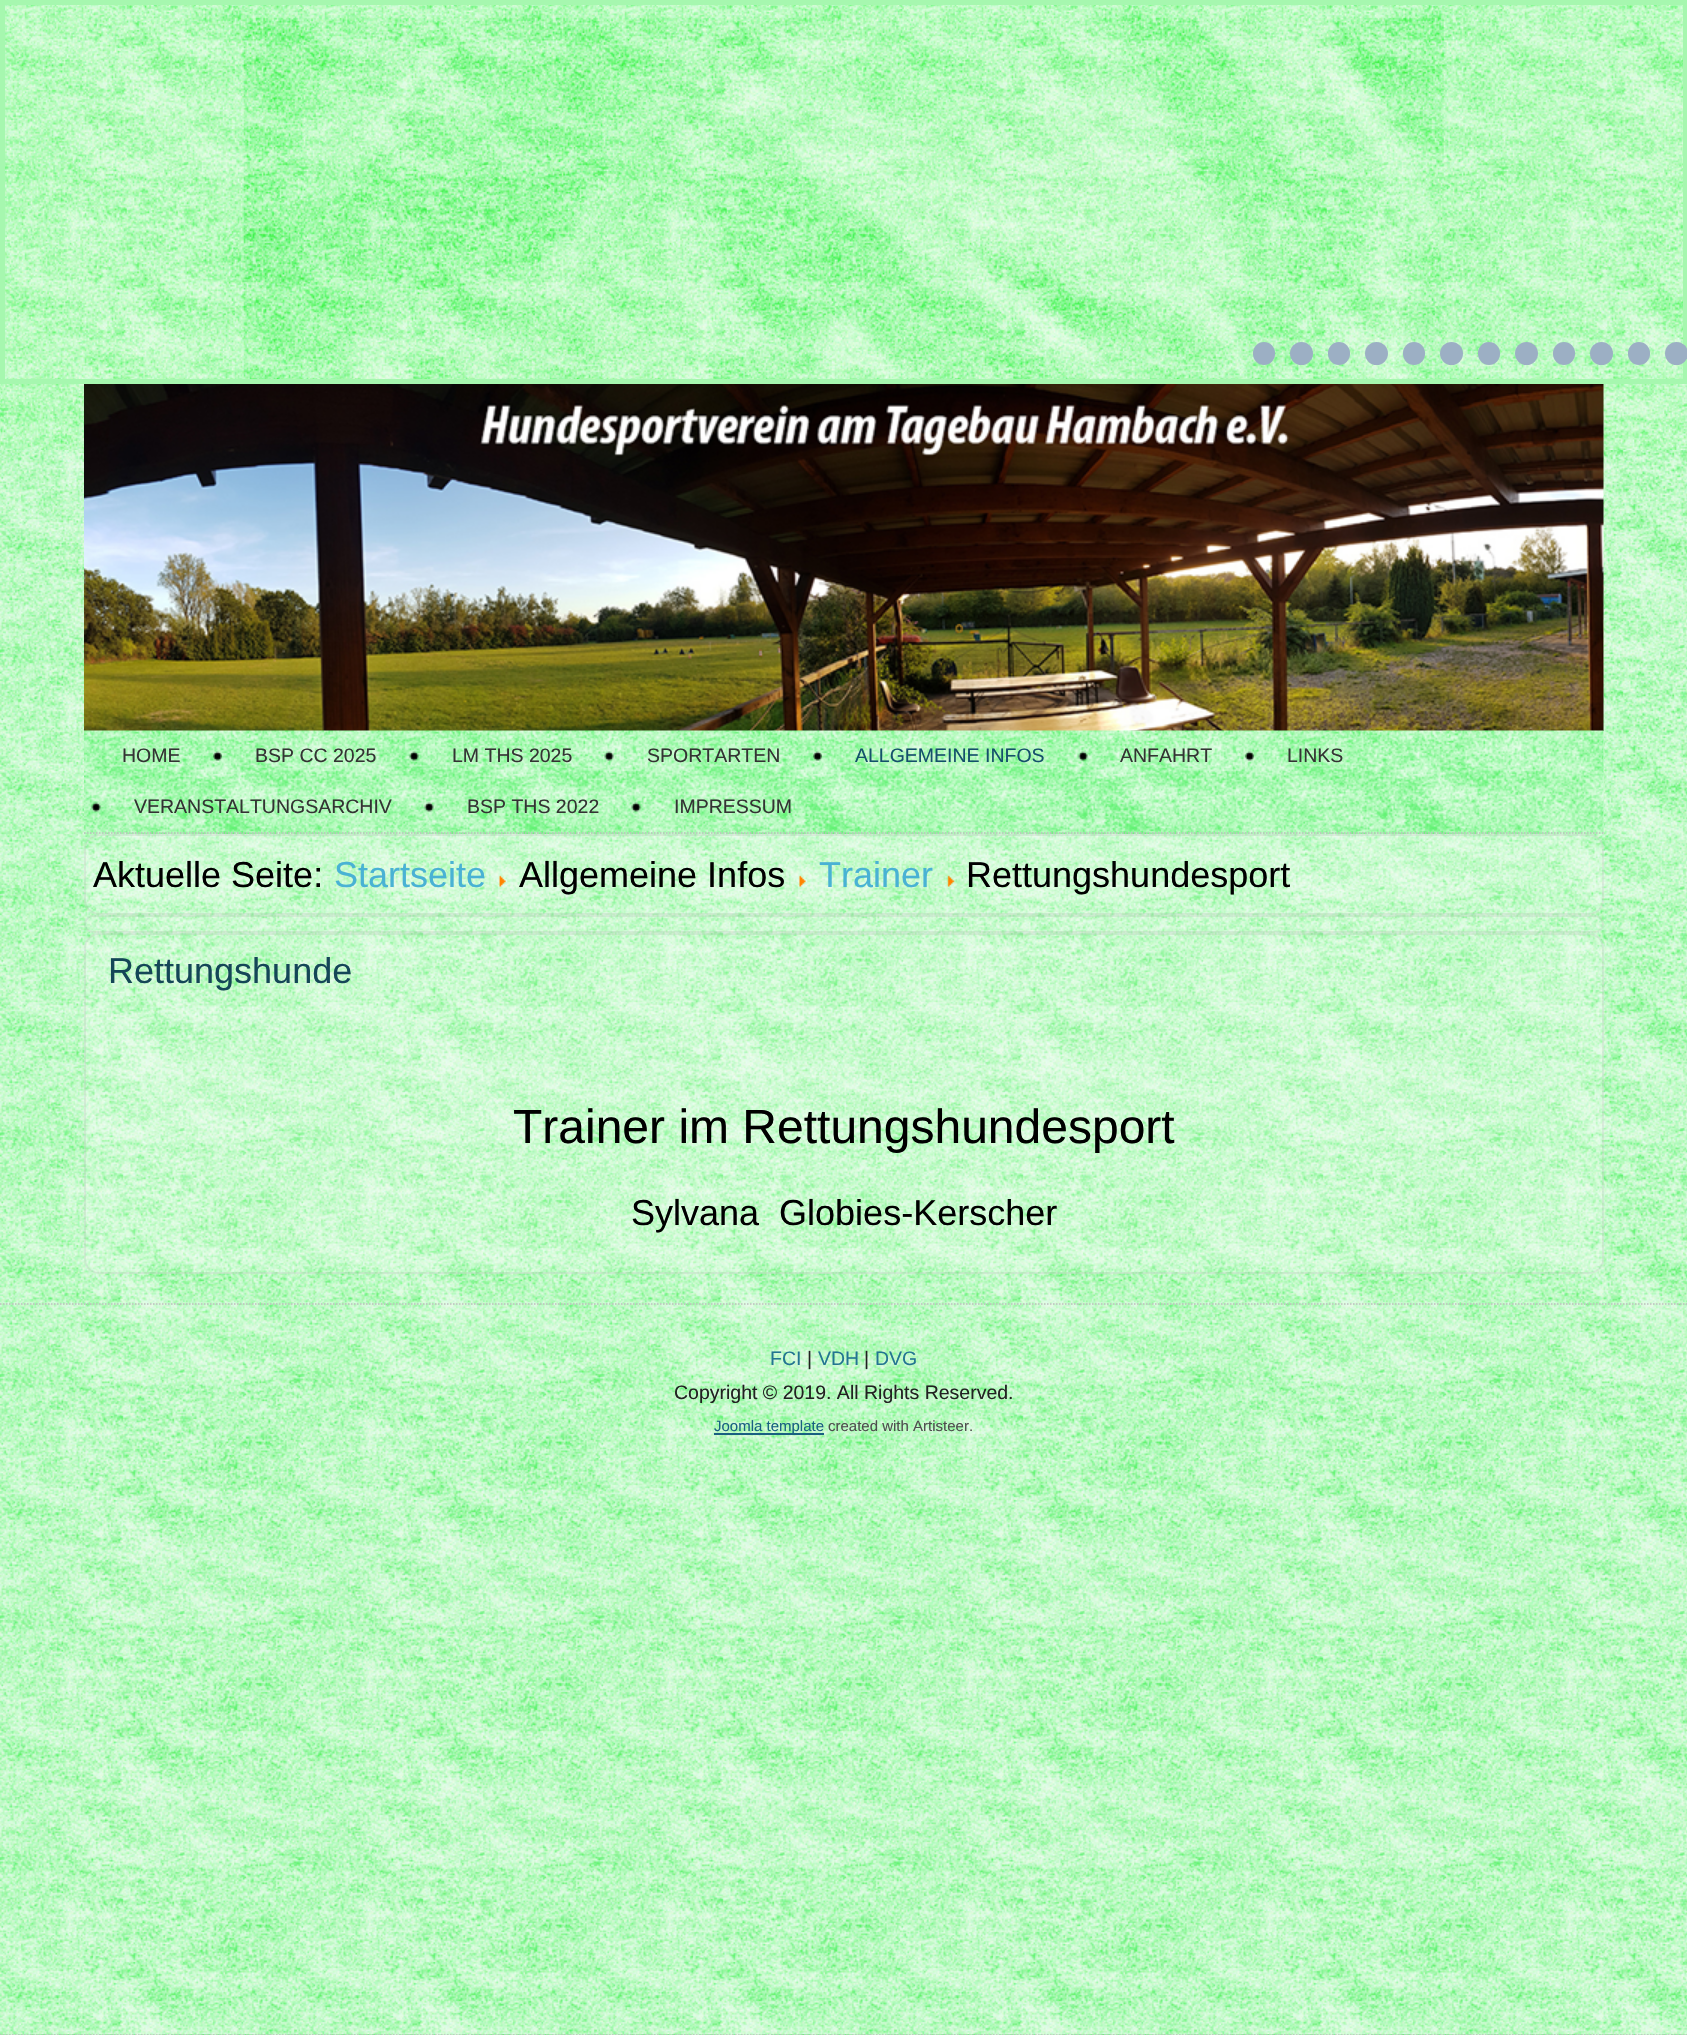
#include "include/core/SkBlurTypes.h"
#include "include/core/SkCanvas.h"
#include "include/core/SkData.h"
#include "include/core/SkFont.h"
#include "include/core/SkFontMgr.h"
#include "include/core/SkImage.h"
#include "include/core/SkMaskFilter.h"
#include "include/core/SkPaint.h"
#include "include/core/SkPathBuilder.h"
#include "include/core/SkTextBlob.h"
#include "include/effects/SkDashPathEffect.h"
#include "include/effects/SkGradientShader.h"
#include "include/utils/SkParsePath.h"

extern sk_sp<SkFontMgr> fontMgr;

void draw(SkCanvas* canvas) {
    SkPaint p;
    p.setAntiAlias(true);
    auto font = [&](const char* family, int weight, float size, bool italic = false) {
        SkFontStyle style(weight, SkFontStyle::kNormal_Width,
            italic ? SkFontStyle::kItalic_Slant : SkFontStyle::kUpright_Slant);
        SkFont result(fontMgr->matchFamilyStyle(family, style), size);
        result.setSubpixel(true);
        return result;
    };
    auto drawPhoto = [&](const char* path, float l, float t, float r, float b) {
        auto image = SkImages::DeferredFromEncodedData(SkData::MakeFromFileName(path));
        canvas->drawImageRect(image, SkRect::MakeLTRB(l, t, r, b), SkSamplingOptions());
    };
    canvas->clear(0xFFFFFFFF);
    drawPhoto("media/1.png", 0, 450, 1687, 2034);
    drawPhoto("media/2.png", 0, 5, 1687, 450);
    p.setStyle(SkPaint::kStroke_Style);
    p.setStrokeWidth(5);
    p.setColor(0xFFA6F7AF);
    canvas->drawRect(SkRect::MakeLTRB(2.5f, 2.5f, 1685.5f, 381.5f), p);
    p.setStyle(SkPaint::kFill_Style);
    p.setColor(0xFF9CAFC4);
    canvas->drawRoundRect(SkRect::MakeLTRB(1253, 342, 1275, 365), 11, 11, p);
    canvas->drawCircle(1301.5f, 353.5f, 11.5f, p);
    canvas->drawRoundRect(SkRect::MakeLTRB(1328, 342, 1350, 365), 11, 11, p);
    canvas->drawCircle(1376.5f, 353.5f, 11.5f, p);
    canvas->drawRoundRect(SkRect::MakeLTRB(1403, 342, 1425, 365), 11, 11, p);
    canvas->drawCircle(1451.5f, 353.5f, 11.5f, p);
    canvas->drawRoundRect(SkRect::MakeLTRB(1478, 342, 1500, 365), 11, 11, p);
    canvas->drawCircle(1526.5f, 353.5f, 11.5f, p);
    canvas->drawRoundRect(SkRect::MakeLTRB(1553, 342, 1575, 365), 11, 11, p);
    canvas->drawCircle(1601.5f, 353.5f, 11.5f, p);
    canvas->drawRoundRect(SkRect::MakeLTRB(1628, 342, 1650, 365), 11, 11, p);
    canvas->drawCircle(1676.5f, 353.5f, 11.5f, p);
    drawPhoto("media/3.png", 1603, 384, 1604, 731);
    drawPhoto("media/4.png", 84, 384, 1604, 731);
    p.setColor(0xFFCBFBD1);
    canvas->drawRect(SkRect::MakeLTRB(1603, 731, 1604, 834), p);
    drawPhoto("media/5.png", 84, 730, 1604, 834);
    p.setStyle(SkPaint::kStroke_Style);
    p.setStrokeWidth(1.5f);
    p.setColor(0xFFBFBFBF);
    p.setPathEffect(SkDashPathEffect::Make({{1.5f, 1.5f}}, 0));
    canvas->drawPath(SkPathBuilder().moveTo(84, 833).lineTo(1603.5f, 833).detach(), p);
    p.setPathEffect(nullptr);
    auto font1 = font("Liberation Sans", 400, 19.5f);
    p.setStyle(SkPaint::kFill_Style);
    p.setColor(0xFF333333);
    canvas->drawString("HOME", 122, 762, font1, p);
    drawPhoto("media/6.png", 213, 751, 222, 761);
    canvas->drawString("BSP CC 2025", 255, 762, font1, p);
    drawPhoto("media/7.png", 409, 751, 419, 761);
    canvas->drawString("LM THS 2025", 452, 762, font1, p);
    drawPhoto("media/8.png", 604, 751, 614, 761);
    canvas->drawString("SPORTARTEN", 647, 762, font1, p);
    drawPhoto("media/9.png", 813, 751, 822, 761);
    p.setColor(0xFF14506B);
    canvas->drawString("ALLGEMEINE INFOS", 855, 762, font1, p);
    drawPhoto("media/10.png", 1078, 751, 1088, 761);
    p.setColor(0xFF333333);
    canvas->drawString("ANFAHRT", 1120, 762, font1, p);
    drawPhoto("media/11.png", 1245, 751, 1254, 761);
    canvas->drawString("LINKS", 1287, 762, font1, p);
    drawPhoto("media/12.png", 91, 802, 101, 812);
    canvas->drawString("VERANSTALTUNGSARCHIV", 134, 813, font1, p);
    drawPhoto("media/13.png", 424, 802, 434, 812);
    canvas->drawString("BSP THS 2022", 467, 813, font1, p);
    drawPhoto("media/14.png", 631, 802, 641, 812);
    canvas->drawString("IMPRESSUM", 674, 813, font1, p);
    p.setColor(0x33FFFFFF);
    canvas->drawRoundRect(SkRect::MakeLTRB(84, 834, 1604, 915), 15, 15, p);
    p.setStyle(SkPaint::kStroke_Style);
    p.setStrokeWidth(2);
    p.setColor(0x33ABABAB);
    canvas->drawRoundRect(SkRect::MakeLTRB(85, 835, 1603, 914), 14, 14, p);
    auto font2 = font("Liberation Sans", 400, 36);
    p.setStyle(SkPaint::kFill_Style);
    p.setColor(0xFF000000);
    canvas->drawString("Aktuelle Seite:", 93, 887, font2, p);
    p.setColor(0xFF49B2D4);
    canvas->drawString("Startseite", 334, 887, font2, p);
    drawPhoto("media/15.png", 499, 875, 506, 887);
    p.setColor(0xFF000000);
    canvas->drawString("Allgemeine Infos", 519, 887, font2, p);
    drawPhoto("media/16.png", 799, 875, 806, 887);
    p.setColor(0xFF49B2D4);
    canvas->drawString("Trainer", 819, 887, font2, p);
    drawPhoto("media/17.png", 947, 875, 955, 887);
    p.setColor(0xFF000000);
    canvas->drawString("Rettungshundesport", 966, 887, font2, p);
    p.setColor(0x33FFFFFF);
    canvas->drawRoundRect(SkRect::MakeLTRB(84, 915, 1604, 933), 9, 9, p);
    p.setStyle(SkPaint::kStroke_Style);
    p.setColor(0x33ABABAB);
    canvas->drawRoundRect(SkRect::MakeLTRB(85, 916, 1603, 932), 8, 8, p);
    p.setStyle(SkPaint::kFill_Style);
    p.setColor(0x33FFFFFF);
    canvas->drawRoundRect(SkRect::MakeLTRB(84, 933, 1604, 1274), 15, 15, p);
    p.setStyle(SkPaint::kStroke_Style);
    p.setColor(0x33ABABAB);
    canvas->drawRoundRect(SkRect::MakeLTRB(85, 934, 1603, 1273), 14, 14, p);
    p.setStyle(SkPaint::kFill_Style);
    p.setColor(0xFF144657);
    canvas->drawString("Rettungshunde", 108, 983, font2, p);
    auto font3 = font("Liberation Sans", 400, 48);
    p.setColor(0xFF000000);
    canvas->drawString("Trainer im Rettungshundesport", 513, 1143, font3, p);
    canvas->drawString("Sylvana  Globies-Kerscher", 631, 1225, font2, p);
    p.setStyle(SkPaint::kStroke_Style);
    p.setStrokeWidth(1.5f);
    p.setColor(0xFFBFBFBF);
    p.setPathEffect(SkDashPathEffect::Make({{1.5f, 1.5f}}, 0));
    canvas->drawPath(SkPathBuilder().moveTo(0, 1304).lineTo(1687.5f, 1304).detach(), p);
    p.setPathEffect(nullptr);
    p.setStyle(SkPaint::kFill_Style);
    p.setColor(0xFF227591);
    canvas->drawString("FCI", 770, 1365, font1, p);
    p.setColor(0xFF212121);
    canvas->drawString("|", 807, 1365, font1, p);
    p.setColor(0xFF227591);
    canvas->drawString("VDH", 818, 1365, font1, p);
    p.setColor(0xFF212121);
    canvas->drawString("|", 864, 1365, font1, p);
    p.setColor(0xFF227591);
    canvas->drawString("DVG", 875, 1365, font1, p);
    p.setColor(0xFF212121);
    canvas->drawString("Copyright © 2019. All Rights Reserved.", 674, 1399, font1, p);
    p.setColor(0xFF186081);
    canvas->drawRect(SkRect::MakeLTRB(714, 1433, 824, 1435), p);
    auto font4 = font("Liberation Sans", 400, 15);
    canvas->drawString("Joomla template", 714, 1431, font4, p);
    p.setColor(0xFF4D4D4D);
    canvas->drawString("created with Artisteer.", 828, 1431, font4, p);
    drawPhoto("media/18.png", 0, 2034, 1687, 2035);
    p.setStyle(SkPaint::kStroke_Style);
    p.setColor(0xFFBFBFBF);
    p.setPathEffect(SkDashPathEffect::Make({{1.5f, 1.5f}}, 0));
    canvas->drawPath(SkPathBuilder().moveTo(0, 2035).lineTo(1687.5f, 2035).detach(), p);
    p.setPathEffect(nullptr);
}
